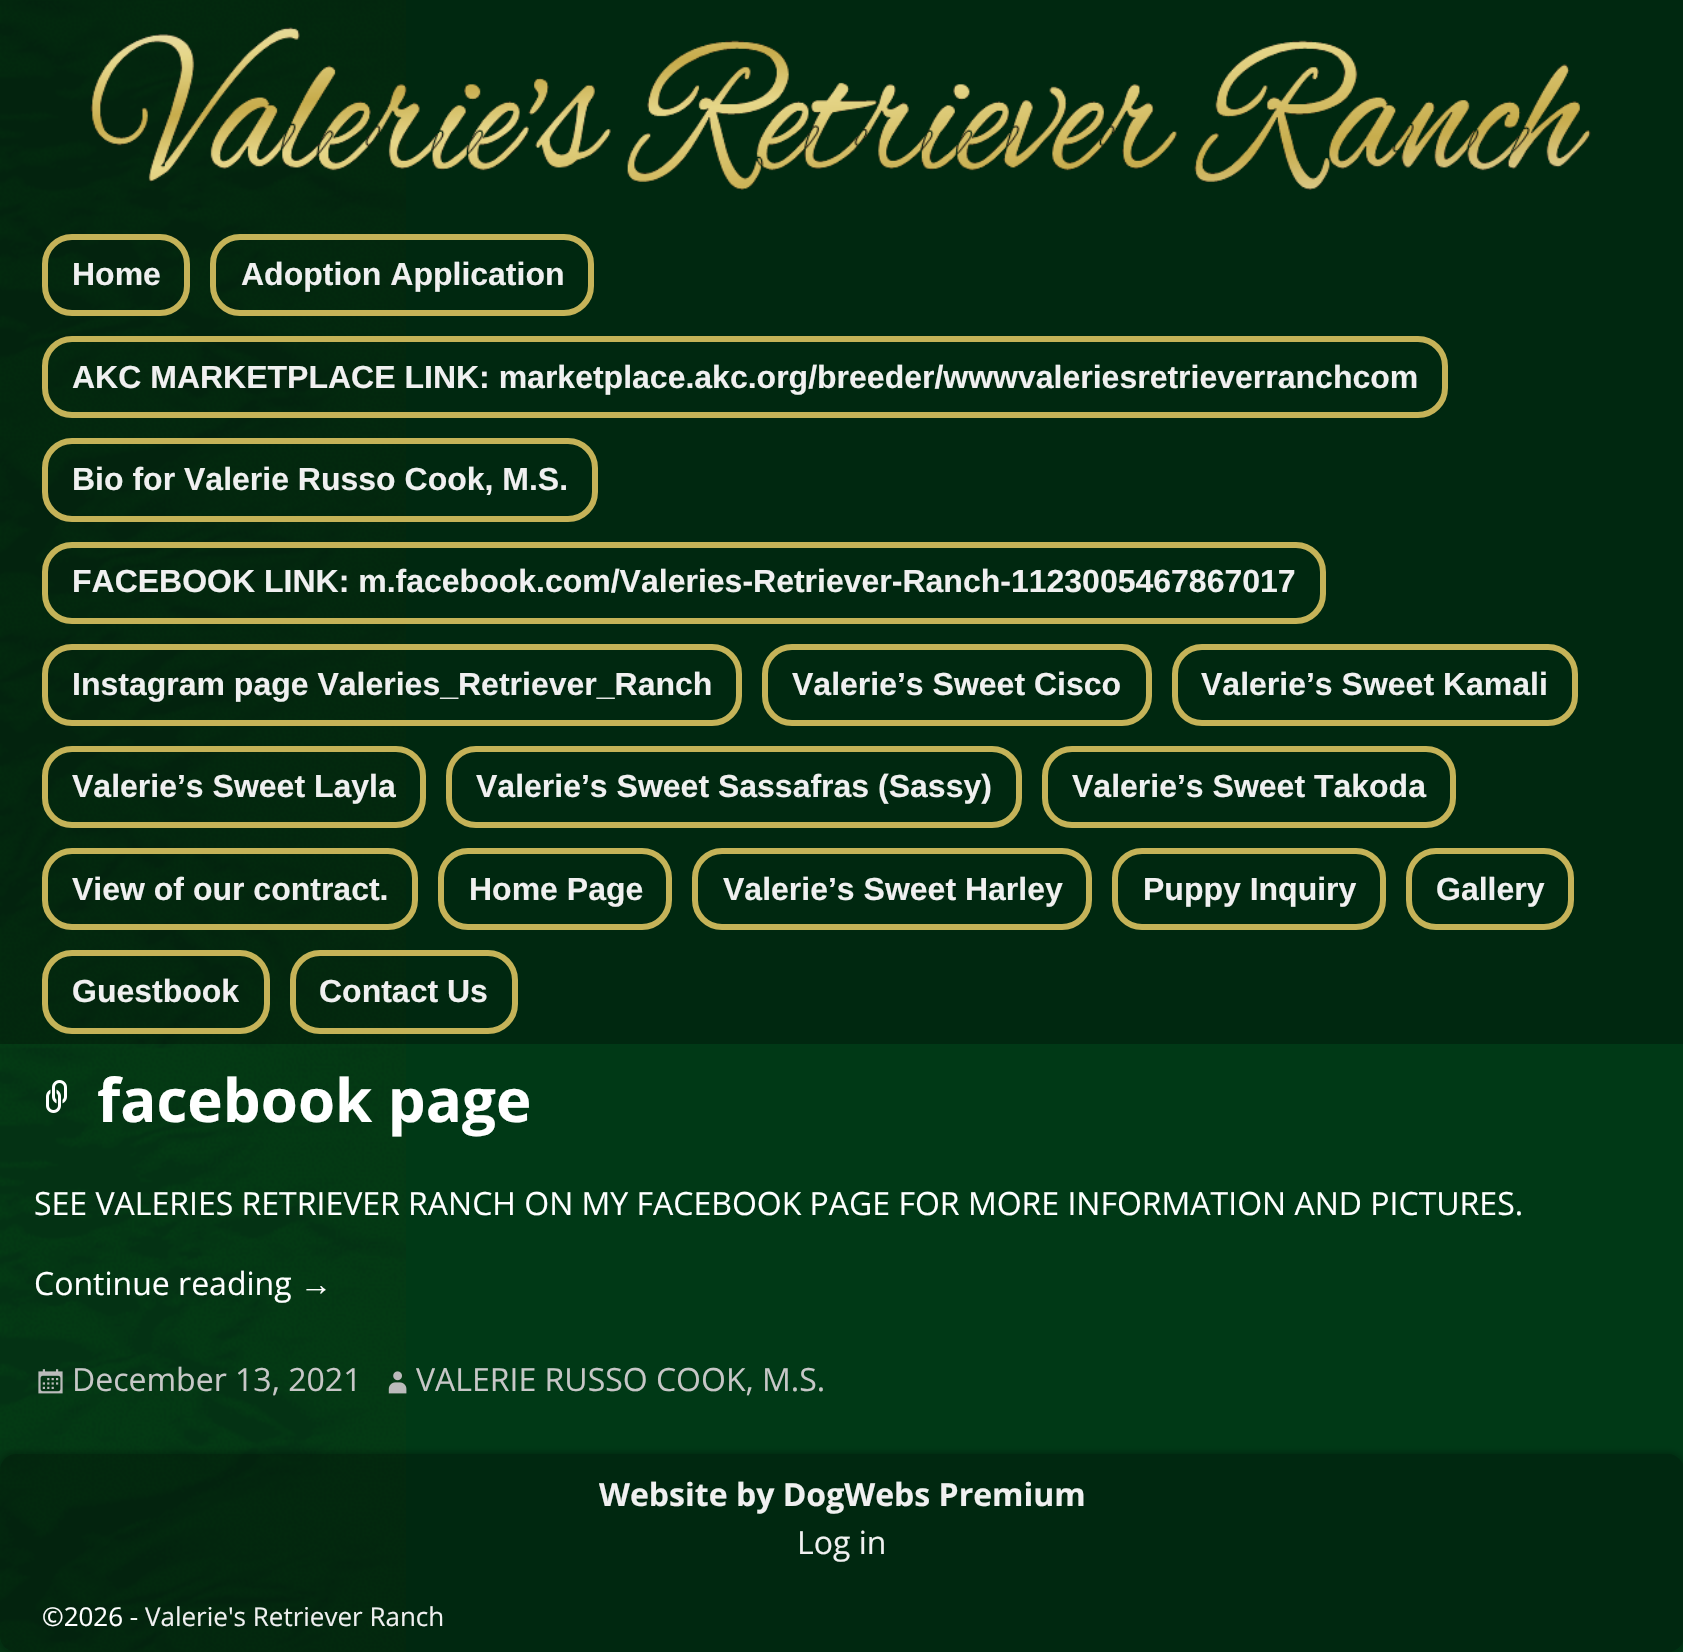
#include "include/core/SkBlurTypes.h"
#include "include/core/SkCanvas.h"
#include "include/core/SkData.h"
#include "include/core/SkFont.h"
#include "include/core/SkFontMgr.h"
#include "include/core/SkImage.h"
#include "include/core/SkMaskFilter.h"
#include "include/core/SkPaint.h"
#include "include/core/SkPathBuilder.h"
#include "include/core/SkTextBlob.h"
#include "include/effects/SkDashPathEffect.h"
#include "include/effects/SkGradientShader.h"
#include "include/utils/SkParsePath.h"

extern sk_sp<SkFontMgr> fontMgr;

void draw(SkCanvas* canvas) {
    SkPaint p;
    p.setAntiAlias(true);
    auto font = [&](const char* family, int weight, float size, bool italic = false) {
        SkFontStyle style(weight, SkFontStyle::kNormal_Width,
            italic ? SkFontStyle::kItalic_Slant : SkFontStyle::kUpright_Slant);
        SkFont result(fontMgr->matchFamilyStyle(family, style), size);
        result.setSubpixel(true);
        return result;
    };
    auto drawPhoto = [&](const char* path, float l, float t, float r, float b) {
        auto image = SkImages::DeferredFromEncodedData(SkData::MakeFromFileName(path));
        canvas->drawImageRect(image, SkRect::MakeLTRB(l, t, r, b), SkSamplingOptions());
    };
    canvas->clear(0xFF003916);
    drawPhoto("media/1.png", 0, 0, 406, 1652);
    p.setColor(0x4D000000);
    canvas->drawRect(SkRect::MakeLTRB(0, 0, 1683, 1044), p);
    drawPhoto("media/2.png", 90, 27, 1591, 190);
    p.setStyle(SkPaint::kStroke_Style);
    p.setStrokeWidth(6);
    p.setColor(0xFFC5B358);
    canvas->drawRoundRect(SkRect::MakeLTRB(45, 237, 187, 313), 27, 27, p);
    auto font1 = font("Liberation Sans", 700, 32);
    p.setStyle(SkPaint::kFill_Style);
    p.setColor(0xFFF0F0F0);
    canvas->drawString("Home", 72, 285, font1, p);
    p.setStyle(SkPaint::kStroke_Style);
    p.setColor(0xFFC5B358);
    canvas->drawRoundRect(SkRect::MakeLTRB(213, 237, 591, 313), 27, 27, p);
    p.setStyle(SkPaint::kFill_Style);
    p.setColor(0xFFF0F0F0);
    canvas->drawString("Adoption Application", 241, 285, font1, p);
    p.setStyle(SkPaint::kStroke_Style);
    p.setColor(0xFFC5B358);
    canvas->drawRoundRect(SkRect::MakeLTRB(45, 339, 1445, 415), 27, 27, p);
    p.setStyle(SkPaint::kFill_Style);
    p.setColor(0xFFF0F0F0);
    canvas->drawString("AKC MARKETPLACE LINK: marketplace.akc.org/breeder/wwwvaleriesretrieverranchcom", 72, 388, font1, p);
    p.setStyle(SkPaint::kStroke_Style);
    p.setColor(0xFFC5B358);
    canvas->drawRoundRect(SkRect::MakeLTRB(45, 441, 595, 519), 27, 27, p);
    p.setStyle(SkPaint::kFill_Style);
    p.setColor(0xFFF0F0F0);
    canvas->drawString("Bio for Valerie Russo Cook, M.S.", 72, 490, font1, p);
    p.setStyle(SkPaint::kStroke_Style);
    p.setColor(0xFFC5B358);
    canvas->drawRoundRect(SkRect::MakeLTRB(45, 545, 1323, 621), 27, 27, p);
    p.setStyle(SkPaint::kFill_Style);
    p.setColor(0xFFF0F0F0);
    canvas->drawString("FACEBOOK LINK: m.facebook.com/Valeries-Retriever-Ranch-1123005467867017", 72, 592, font1, p);
    p.setStyle(SkPaint::kStroke_Style);
    p.setColor(0xFFC5B358);
    canvas->drawRoundRect(SkRect::MakeLTRB(45, 647, 739, 723), 27, 27, p);
    p.setStyle(SkPaint::kFill_Style);
    p.setColor(0xFFF0F0F0);
    canvas->drawString("Instagram page Valeries_Retriever_Ranch", 72, 695, font1, p);
    p.setStyle(SkPaint::kStroke_Style);
    p.setColor(0xFFC5B358);
    canvas->drawRoundRect(SkRect::MakeLTRB(765, 647, 1149, 723), 27, 27, p);
    p.setStyle(SkPaint::kFill_Style);
    p.setColor(0xFFF0F0F0);
    canvas->drawString("Valerie’s Sweet Cisco", 792, 695, font1, p);
    p.setStyle(SkPaint::kStroke_Style);
    p.setColor(0xFFC5B358);
    canvas->drawRoundRect(SkRect::MakeLTRB(1175, 647, 1575, 723), 27, 27, p);
    p.setStyle(SkPaint::kFill_Style);
    p.setColor(0xFFF0F0F0);
    canvas->drawString("Valerie’s Sweet Kamali", 1201, 695, font1, p);
    p.setStyle(SkPaint::kStroke_Style);
    p.setColor(0xFFC5B358);
    canvas->drawRoundRect(SkRect::MakeLTRB(45, 749, 423, 825), 27, 27, p);
    p.setStyle(SkPaint::kFill_Style);
    p.setColor(0xFFF0F0F0);
    canvas->drawString("Valerie’s Sweet Layla", 72, 797, font1, p);
    p.setStyle(SkPaint::kStroke_Style);
    p.setColor(0xFFC5B358);
    canvas->drawRoundRect(SkRect::MakeLTRB(449, 749, 1019, 825), 27, 27, p);
    p.setStyle(SkPaint::kFill_Style);
    p.setColor(0xFFF0F0F0);
    canvas->drawString("Valerie’s Sweet Sassafras (Sassy)", 476, 797, font1, p);
    p.setStyle(SkPaint::kStroke_Style);
    p.setColor(0xFFC5B358);
    canvas->drawRoundRect(SkRect::MakeLTRB(1045, 749, 1453, 825), 27, 27, p);
    p.setStyle(SkPaint::kFill_Style);
    p.setColor(0xFFF0F0F0);
    canvas->drawString("Valerie’s Sweet Takoda", 1072, 797, font1, p);
    p.setStyle(SkPaint::kStroke_Style);
    p.setColor(0xFFC5B358);
    canvas->drawRoundRect(SkRect::MakeLTRB(45, 851, 415, 927), 27, 27, p);
    p.setStyle(SkPaint::kFill_Style);
    p.setColor(0xFFF0F0F0);
    canvas->drawString("View of our contract.", 72, 900, font1, p);
    p.setStyle(SkPaint::kStroke_Style);
    p.setColor(0xFFC5B358);
    canvas->drawRoundRect(SkRect::MakeLTRB(441, 851, 669, 927), 27, 27, p);
    p.setStyle(SkPaint::kFill_Style);
    p.setColor(0xFFF0F0F0);
    canvas->drawString("Home Page", 469, 900, font1, p);
    p.setStyle(SkPaint::kStroke_Style);
    p.setColor(0xFFC5B358);
    canvas->drawRoundRect(SkRect::MakeLTRB(695, 851, 1089, 927), 27, 27, p);
    p.setStyle(SkPaint::kFill_Style);
    p.setColor(0xFFF0F0F0);
    canvas->drawString("Valerie’s Sweet Harley", 723, 900, font1, p);
    p.setStyle(SkPaint::kStroke_Style);
    p.setColor(0xFFC5B358);
    canvas->drawRoundRect(SkRect::MakeLTRB(1115, 851, 1383, 927), 27, 27, p);
    p.setStyle(SkPaint::kFill_Style);
    p.setColor(0xFFF0F0F0);
    canvas->drawString("Puppy Inquiry", 1143, 900, font1, p);
    p.setStyle(SkPaint::kStroke_Style);
    p.setColor(0xFFC5B358);
    canvas->drawRoundRect(SkRect::MakeLTRB(1409, 851, 1571, 927), 27, 27, p);
    p.setStyle(SkPaint::kFill_Style);
    p.setColor(0xFFF0F0F0);
    canvas->drawString("Gallery", 1436, 900, font1, p);
    p.setStyle(SkPaint::kStroke_Style);
    p.setColor(0xFFC5B358);
    canvas->drawRoundRect(SkRect::MakeLTRB(45, 953, 267, 1031), 27, 27, p);
    p.setStyle(SkPaint::kFill_Style);
    p.setColor(0xFFF0F0F0);
    canvas->drawString("Guestbook", 72, 1002, font1, p);
    p.setStyle(SkPaint::kStroke_Style);
    p.setColor(0xFFC5B358);
    canvas->drawRoundRect(SkRect::MakeLTRB(293, 953, 515, 1031), 27, 27, p);
    p.setStyle(SkPaint::kFill_Style);
    p.setColor(0xFFF0F0F0);
    canvas->drawString("Contact Us", 319, 1002, font1, p);
    drawPhoto("media/3.png", 46, 1080, 67, 1113);
    auto font2 = font("Open Sans", 700, 60);
    p.setColor(0xFFFFFFFF);
    canvas->drawString("facebook page", 97, 1122, font2, p);
    auto font3 = font("Open Sans", 400, 32);
    canvas->drawString("SEE VALERIES RETRIEVER RANCH ON MY FACEBOOK PAGE FOR MORE INFORMATION AND PICTURES.", 34, 1215, font3, p);
    canvas->drawString("Continue reading", 34, 1295, font3, p);
    auto font4 = font("Liberation Sans", 400, 32);
    canvas->drawString("→", 300, 1295, font4, p);
    drawPhoto("media/4.png", 38, 1369, 63, 1394);
    p.setColor(0xFFC7C7C7);
    canvas->drawString("December 13, 2021", 72, 1391, font3, p);
    drawPhoto("media/5.png", 388, 1371, 407, 1394);
    canvas->drawString("VALERIE RUSSO COOK, M.S.", 416, 1391, font3, p);
    canvas->save();
    canvas->clipPath(SkPathBuilder(SkPathFillType::kEvenOdd).moveTo(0, 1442).lineTo(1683, 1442).lineTo(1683, 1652).lineTo(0, 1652).close().moveTo(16, 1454).lineTo(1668, 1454).cubicTo(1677, 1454, 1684, 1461, 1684, 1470).lineTo(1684, 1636).cubicTo(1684, 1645, 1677, 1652, 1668, 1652).lineTo(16, 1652).cubicTo(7, 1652, 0, 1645, 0, 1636).lineTo(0, 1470).cubicTo(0, 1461, 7, 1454, 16, 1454).close().detach(), true);
    p.setColor(0x40000000);
    p.setMaskFilter(SkMaskFilter::MakeBlur(kNormal_SkBlurStyle, 3));
    canvas->drawRoundRect(SkRect::MakeLTRB(-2, 1452, 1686, 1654), 18, 18, p);
    p.setMaskFilter(nullptr);
    canvas->restore();
    p.setColor(0x4D000000);
    canvas->drawRoundRect(SkRect::MakeLTRB(0, 1454, 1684, 1652), 16, 16, p);
    auto font5 = font("Open Sans", 700, 32);
    p.setColor(0xFFF0F0F0);
    canvas->drawString("Website by DogWebs Premium", 599, 1506, font5, p);
    canvas->drawString("Log in", 797, 1554, font3, p);
    auto font6 = font("Open Sans", 400, 26);
    p.setColor(0xFFFFFFFF);
    canvas->drawString("©2026 -", 42, 1626, font6, p);
    p.setColor(0xFFF0F0F0);
    canvas->drawString("Valerie's Retriever Ranch", 145, 1626, font6, p);
}
